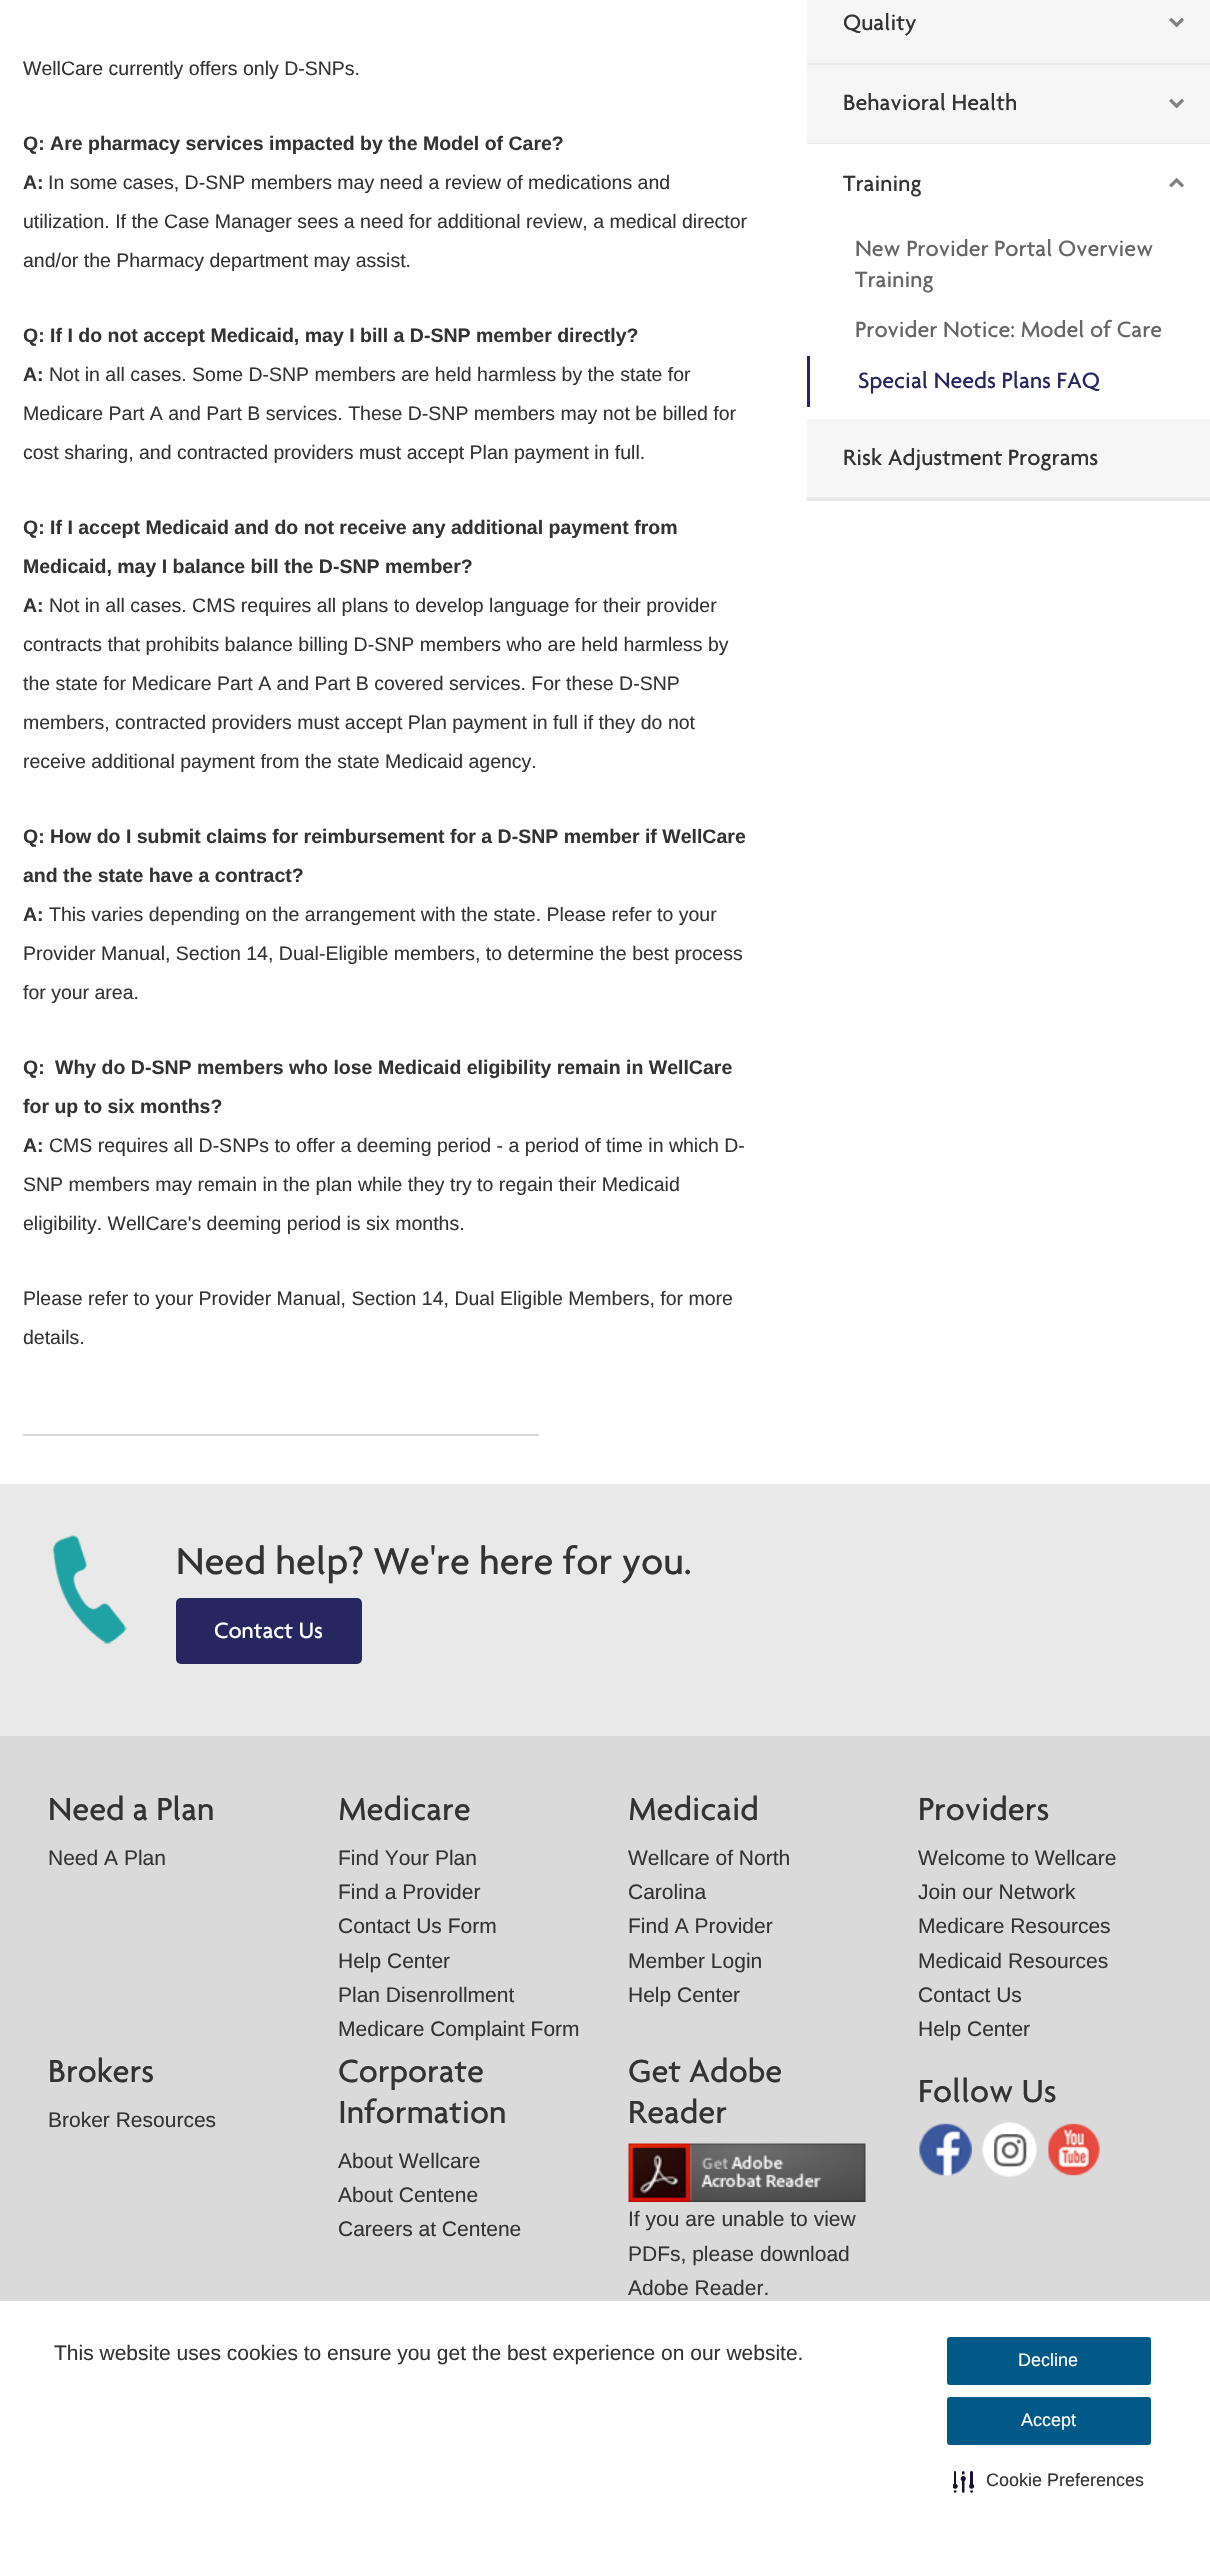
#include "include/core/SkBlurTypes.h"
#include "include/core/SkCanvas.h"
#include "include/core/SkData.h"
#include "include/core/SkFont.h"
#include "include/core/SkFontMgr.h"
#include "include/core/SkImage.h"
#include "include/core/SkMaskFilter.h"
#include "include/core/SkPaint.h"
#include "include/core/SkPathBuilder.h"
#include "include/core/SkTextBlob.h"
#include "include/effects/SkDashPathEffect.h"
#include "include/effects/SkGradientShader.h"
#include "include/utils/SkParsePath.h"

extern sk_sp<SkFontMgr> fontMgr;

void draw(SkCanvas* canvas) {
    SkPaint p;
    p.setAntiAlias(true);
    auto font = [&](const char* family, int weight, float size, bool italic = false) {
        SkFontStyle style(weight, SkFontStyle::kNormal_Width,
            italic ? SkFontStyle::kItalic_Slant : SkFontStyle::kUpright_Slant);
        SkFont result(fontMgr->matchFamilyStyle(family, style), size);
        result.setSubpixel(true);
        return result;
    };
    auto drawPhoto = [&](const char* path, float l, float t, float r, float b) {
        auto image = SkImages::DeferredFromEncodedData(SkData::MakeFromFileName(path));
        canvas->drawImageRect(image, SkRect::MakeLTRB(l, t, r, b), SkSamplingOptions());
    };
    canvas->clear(0xFFFFFFFF);
    auto font1 = font("Liberation Sans", 400, 19.5f);
    p.setColor(0xFF333333);
    canvas->drawString("WellCare currently offers only D-SNPs.", 23, 75, font1, p);
    auto font2 = font("Liberation Sans", 700, 19.5f);
    canvas->drawString("Q: Are pharmacy services impacted by the Model of Care?", 23, 150, font2, p);
    canvas->drawString("A:", 23, 189, font2, p);
    {
        const struct { const char* s; float x, y; } items[] = {
            {"In some cases, D-SNP members may need a review of medications and", 48, 189},
            {"utilization. If the Case Manager sees a need for additional review, a medical director", 23, 228},
            {"and/or the Pharmacy department may assist.", 23, 267},
        };
        for (auto [s, x, y] : items) {
            canvas->drawString(s, x, y, font1, p);
        }
    }
    canvas->drawString("Q: If I do not accept Medicaid, may I bill a D-SNP member directly?", 23, 342, font2, p);
    canvas->drawString("A:", 23, 381, font2, p);
    {
        const struct { const char* s; float x, y; } items[] = {
            {"Not in all cases. Some D-SNP members are held harmless by the state for", 49, 381},
            {"Medicare Part A and Part B services. These D-SNP members may not be billed for", 23, 420},
            {"cost sharing, and contracted providers must accept Plan payment in full.", 23, 459},
        };
        for (auto [s, x, y] : items) {
            canvas->drawString(s, x, y, font1, p);
        }
    }
    {
        const struct { const char* s; float x, y; } items[] = {
            {"Q: If I accept Medicaid and do not receive any additional payment from", 23, 534},
            {"Medicaid, may I balance bill the D-SNP member?", 23, 573},
            {"A:", 23, 612},
        };
        for (auto [s, x, y] : items) {
            canvas->drawString(s, x, y, font2, p);
        }
    }
    {
        const struct { const char* s; float x, y; } items[] = {
            {"Not in all cases. CMS requires all plans to develop language for their provider", 49, 612},
            {"contracts that prohibits balance billing D-SNP members who are held harmless by", 23, 651},
            {"the state for Medicare Part A and Part B covered services. For these D-SNP", 23, 690},
            {"members, contracted providers must accept Plan payment in full if they do not", 23, 729},
            {"receive additional payment from the state Medicaid agency.", 23, 768},
        };
        for (auto [s, x, y] : items) {
            canvas->drawString(s, x, y, font1, p);
        }
    }
    {
        const struct { const char* s; float x, y; } items[] = {
            {"Q: How do I submit claims for reimbursement for a D-SNP member if WellCare", 23, 843},
            {"and the state have a contract?", 23, 882},
            {"A:", 23, 921},
        };
        for (auto [s, x, y] : items) {
            canvas->drawString(s, x, y, font2, p);
        }
    }
    {
        const struct { const char* s; float x, y; } items[] = {
            {"This varies depending on the arrangement with the state. Please refer to your", 49, 921},
            {"Provider Manual, Section 14, Dual-Eligible members, to determine the best process", 23, 960},
            {"for your area.", 23, 999},
        };
        for (auto [s, x, y] : items) {
            canvas->drawString(s, x, y, font1, p);
        }
    }
    {
        const struct { const char* s; float x, y; } items[] = {
            {"Q:", 23, 1074},
            {"Why do D-SNP members who lose Medicaid eligibility remain in WellCare", 55, 1074},
            {"for up to six months?", 23, 1113},
            {"A:", 23, 1152},
        };
        for (auto [s, x, y] : items) {
            canvas->drawString(s, x, y, font2, p);
        }
    }
    {
        const struct { const char* s; float x, y; } items[] = {
            {"CMS requires all D-SNPs to offer a deeming period - a period of time in which D-", 49, 1152},
            {"SNP members may remain in the plan while they try to regain their Medicaid", 23, 1191},
            {"eligibility. WellCare's deeming period is six months.", 23, 1230},
            {"Please refer to your Provider Manual, Section 14, Dual Eligible Members, for more", 23, 1305},
            {"details.", 23, 1344},
        };
        for (auto [s, x, y] : items) {
            canvas->drawString(s, x, y, font1, p);
        }
    }
    {
        const struct { float l, t, r, b; SkColor color; } items[] = {
            {23, 1434, 539, 1436, 0xFFD6D6D6},
            {807, 497, 1210, 501, 0xFFE9E9E9},
            {807, 0, 1210, 63, 0xFFF6F6F6},
            {807, 63, 1210, 65, 0xFFE9E9E9},
        };
        for (auto [l, t, r, b, color] : items) {
            p.setColor(color);
            canvas->drawRect(SkRect::MakeLTRB(l, t, r, b), p);
        }
    }
    auto font3 = font("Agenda", 500, 24);
    p.setColor(0xFF333333);
    canvas->drawString("Quality", 843, 30, font3, p);
    drawPhoto("media/1.png", 1169, 18, 1184, 28);
    p.setColor(0xFFF6F6F6);
    canvas->drawRect(SkRect::MakeLTRB(807, 65, 1210, 143), p);
    p.setColor(0xFFE9E9E9);
    canvas->drawRect(SkRect::MakeLTRB(807, 143, 1210, 144), p);
    p.setColor(0xFF333333);
    canvas->drawString("Behavioral Health", 843, 110, font3, p);
    drawPhoto("media/1.png", 1169, 99, 1184, 109);
    canvas->drawString("Training", 843, 191, font3, p);
    drawPhoto("media/2.png", 1169, 178, 1184, 188);
    p.setColor(0xFF666666);
    {
        const struct { const char* s; float x, y; } items[] = {
            {"New Provider Portal Overview", 855, 256},
            {"Training", 855, 287},
            {"Provider Notice: Model of Care", 855, 337},
        };
        for (auto [s, x, y] : items) {
            canvas->drawString(s, x, y, font3, p);
        }
    }
    p.setColor(0xFF262761);
    canvas->drawRect(SkRect::MakeLTRB(807, 356, 810, 407), p);
    canvas->drawString("Special Needs Plans FAQ", 858, 388, font3, p);
    p.setColor(0xFFF6F6F6);
    canvas->drawRect(SkRect::MakeLTRB(807, 419, 1210, 497), p);
    p.setColor(0xFF333333);
    canvas->drawString("Risk Adjustment Programs", 843, 465, font3, p);
    p.setColor(0xFFE9E9E9);
    canvas->drawRect(SkRect::MakeLTRB(0, 1484, 1210, 1736), p);
    drawPhoto("media/3.png", 52, 1535, 127, 1644);
    auto font4 = font("Agenda", 500, 40.5f);
    p.setColor(0xFF333333);
    canvas->drawString("Need help? We're here for you.", 176, 1574, font4, p);
    p.setColor(0xFF262761);
    canvas->drawRoundRect(SkRect::MakeLTRB(176, 1598, 362, 1664), 5, 5, p);
    p.setColor(0xFFFFFFFF);
    canvas->drawString("Contact Us", 214, 1638, font3, p);
    p.setColor(0xFFDADADA);
    canvas->drawRect(SkRect::MakeLTRB(0, 1736, 1210, 2301), p);
    auto font5 = font("Agenda", 500, 34.5f);
    p.setColor(0xFF333333);
    canvas->drawString("Need a Plan", 48, 1820, font5, p);
    auto font6 = font("Liberation Sans", 400, 21);
    canvas->drawString("Need A Plan", 48, 1865, font6, p);
    canvas->drawString("Medicare", 338, 1820, font5, p);
    {
        const struct { const char* s; float x, y; } items[] = {
            {"Find Your Plan", 338, 1865},
            {"Find a Provider", 338, 1899},
            {"Contact Us Form", 338, 1933},
            {"Help Center", 338, 1968},
            {"Plan Disenrollment", 338, 2002},
            {"Medicare Complaint Form", 338, 2036},
        };
        for (auto [s, x, y] : items) {
            canvas->drawString(s, x, y, font6, p);
        }
    }
    canvas->drawString("Medicaid", 628, 1820, font5, p);
    {
        const struct { const char* s; float x, y; } items[] = {
            {"Wellcare of North", 628, 1865},
            {"Carolina", 628, 1899},
            {"Find A Provider", 628, 1933},
            {"Member Login", 628, 1968},
            {"Help Center", 628, 2002},
        };
        for (auto [s, x, y] : items) {
            canvas->drawString(s, x, y, font6, p);
        }
    }
    canvas->drawString("Providers", 918, 1820, font5, p);
    {
        const struct { const char* s; float x, y; } items[] = {
            {"Welcome to Wellcare", 918, 1865},
            {"Join our Network", 918, 1899},
            {"Medicare Resources", 918, 1933},
            {"Medicaid Resources", 918, 1968},
            {"Contact Us", 918, 2002},
            {"Help Center", 918, 2036},
        };
        for (auto [s, x, y] : items) {
            canvas->drawString(s, x, y, font6, p);
        }
    }
    canvas->drawString("Brokers", 48, 2082, font5, p);
    canvas->drawString("Broker Resources", 48, 2127, font6, p);
    canvas->drawString("Corporate", 338, 2082, font5, p);
    canvas->drawString("Information", 338, 2123, font5, p);
    {
        const struct { const char* s; float x, y; } items[] = {
            {"About Wellcare", 338, 2168},
            {"About Centene", 338, 2202},
            {"Careers at Centene", 338, 2236},
        };
        for (auto [s, x, y] : items) {
            canvas->drawString(s, x, y, font6, p);
        }
    }
    canvas->drawString("Get Adobe", 628, 2082, font5, p);
    canvas->drawString("Reader", 628, 2123, font5, p);
    drawPhoto("media/4.png", 628, 2143, 866, 2202);
    {
        const struct { const char* s; float x, y; } items[] = {
            {"If you are unable to view", 628, 2226},
            {"PDFs, please download", 628, 2261},
            {"Adobe Reader.", 628, 2295},
        };
        for (auto [s, x, y] : items) {
            canvas->drawString(s, x, y, font6, p);
        }
    }
    canvas->drawString("Follow Us", 918, 2102, font5, p);
    drawPhoto("media/5.png", 919, 2123, 972, 2176);
    drawPhoto("media/6.png", 982, 2122, 1037, 2177);
    drawPhoto("media/7.png", 1048, 2123, 1100, 2176);
    canvas->drawString("This website uses cookies to ensure you get the best experience on our website.", 54, 2360, font6, p);
    p.setColor(0xFF005986);
    canvas->drawRoundRect(SkRect::MakeLTRB(948, 2338, 1150, 2384), 2, 2, p);
    p.setStyle(SkPaint::kStroke_Style);
    p.setStrokeWidth(2);
    canvas->drawRoundRect(SkRect::MakeLTRB(948, 2338, 1150, 2384), 2, 2, p);
    auto font7 = font("Liberation Sans", 400, 18);
    p.setStyle(SkPaint::kFill_Style);
    p.setColor(0xFFFFFFFF);
    canvas->drawString("Decline", 1018, 2366, font7, p);
    p.setColor(0xFF005986);
    canvas->drawRoundRect(SkRect::MakeLTRB(948, 2398, 1150, 2444), 2, 2, p);
    p.setStyle(SkPaint::kStroke_Style);
    canvas->drawRoundRect(SkRect::MakeLTRB(948, 2398, 1150, 2444), 2, 2, p);
    p.setStyle(SkPaint::kFill_Style);
    p.setColor(0xFFFFFFFF);
    canvas->drawString("Accept", 1021, 2426, font7, p);
    drawPhoto("media/8.png", 953, 2471, 975, 2493);
    p.setColor(0xFF333333);
    canvas->drawString("Cookie Preferences", 986, 2486, font7, p);
}
